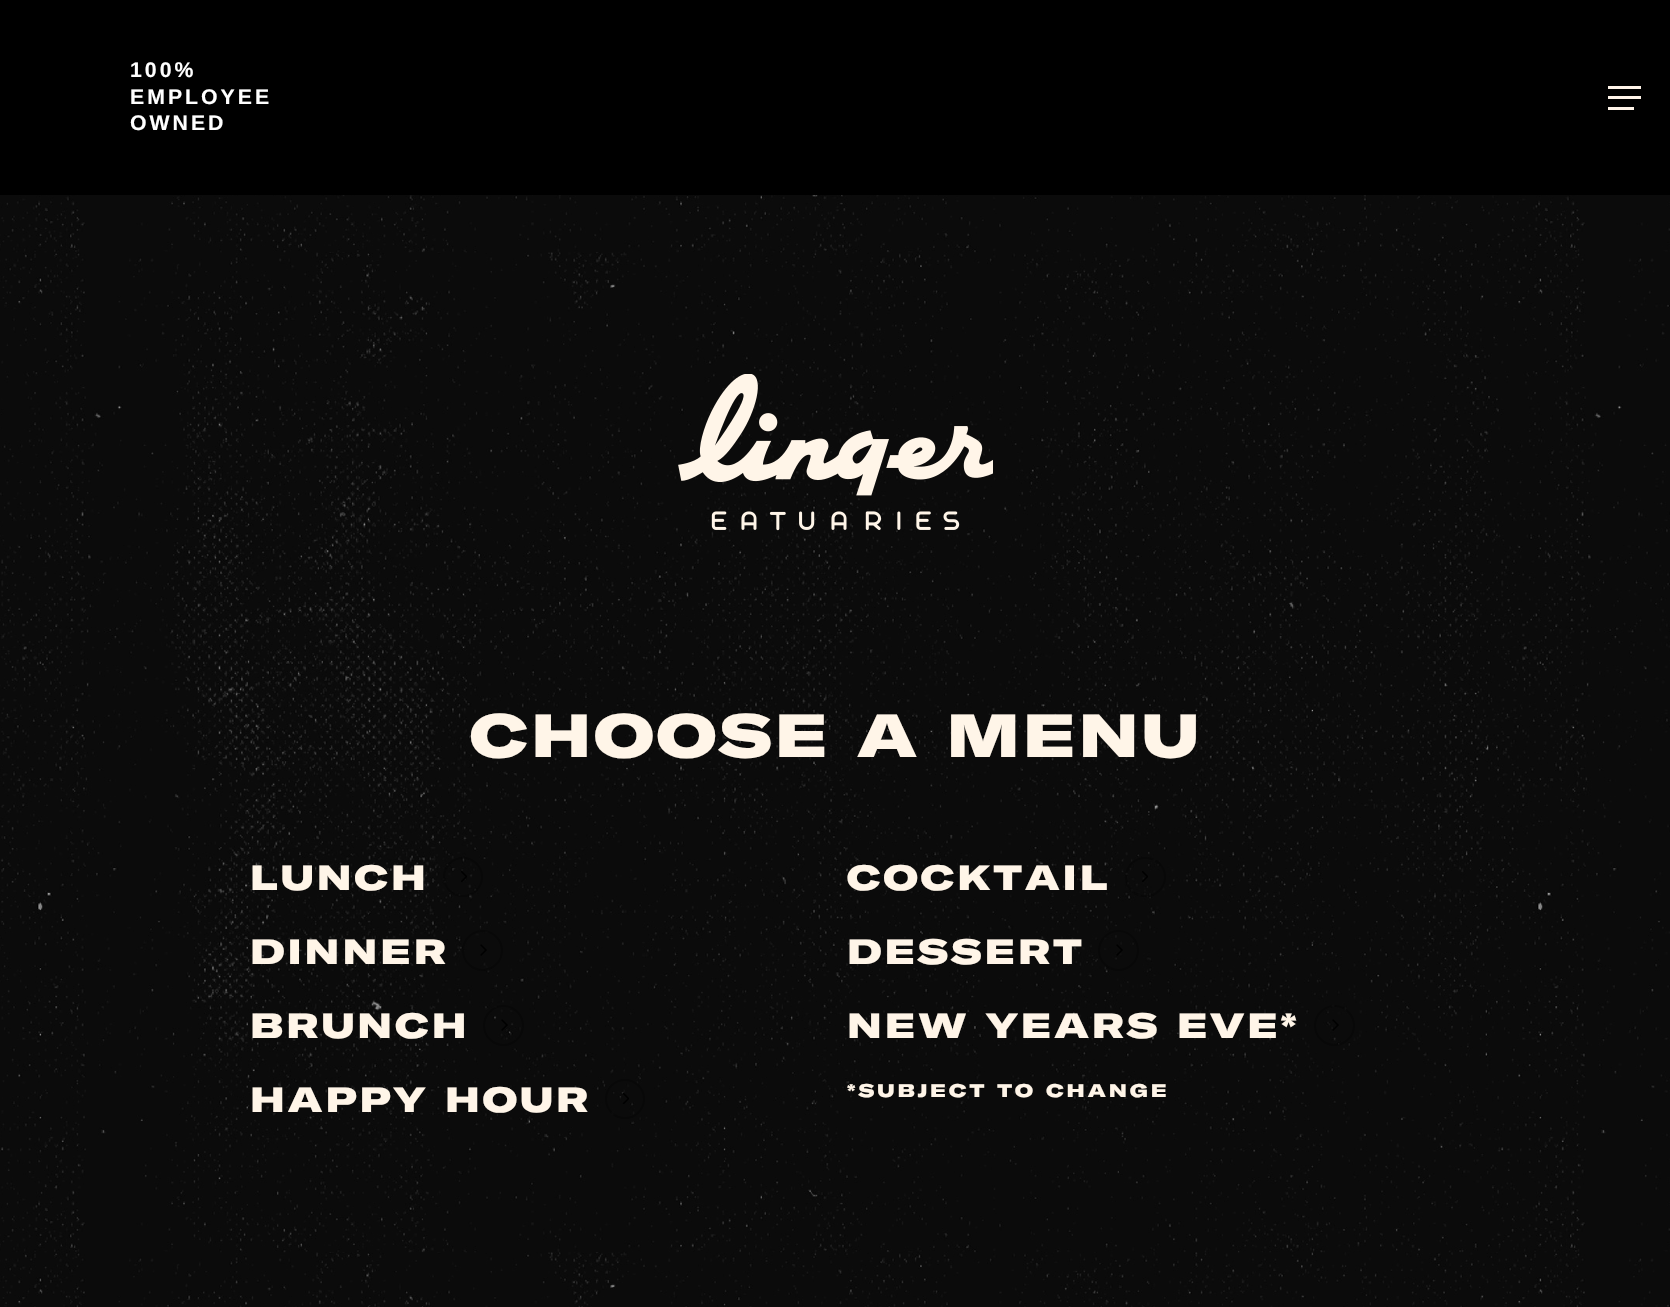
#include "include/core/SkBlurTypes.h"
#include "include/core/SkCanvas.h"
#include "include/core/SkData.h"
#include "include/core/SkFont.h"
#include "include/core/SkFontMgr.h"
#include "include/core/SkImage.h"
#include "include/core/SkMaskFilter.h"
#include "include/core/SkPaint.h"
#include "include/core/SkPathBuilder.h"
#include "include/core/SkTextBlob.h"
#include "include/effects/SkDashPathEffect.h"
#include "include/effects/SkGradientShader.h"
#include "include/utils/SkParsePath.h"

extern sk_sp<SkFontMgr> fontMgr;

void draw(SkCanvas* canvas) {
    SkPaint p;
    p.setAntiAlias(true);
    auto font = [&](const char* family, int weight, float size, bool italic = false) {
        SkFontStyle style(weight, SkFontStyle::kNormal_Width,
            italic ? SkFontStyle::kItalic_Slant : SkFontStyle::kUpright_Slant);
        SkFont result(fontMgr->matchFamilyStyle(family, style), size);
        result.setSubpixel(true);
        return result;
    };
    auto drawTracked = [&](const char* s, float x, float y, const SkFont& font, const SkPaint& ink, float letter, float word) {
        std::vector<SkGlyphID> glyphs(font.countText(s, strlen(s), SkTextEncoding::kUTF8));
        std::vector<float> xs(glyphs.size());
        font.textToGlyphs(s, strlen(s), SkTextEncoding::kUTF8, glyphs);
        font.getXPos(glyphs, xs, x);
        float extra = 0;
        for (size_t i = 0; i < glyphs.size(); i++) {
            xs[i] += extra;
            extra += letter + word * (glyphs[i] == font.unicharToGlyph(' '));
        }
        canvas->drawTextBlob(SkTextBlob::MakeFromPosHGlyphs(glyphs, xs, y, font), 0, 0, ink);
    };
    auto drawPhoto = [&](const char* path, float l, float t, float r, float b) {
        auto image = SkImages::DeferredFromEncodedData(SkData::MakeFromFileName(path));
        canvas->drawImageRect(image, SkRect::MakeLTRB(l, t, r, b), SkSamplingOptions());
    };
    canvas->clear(0xFF000000);
    auto font1 = font("Liberation Sans", 700, 21.25f);
    p.setColor(0xFFFFFFFF);
    {
        const struct { const char* s; float x, y; } items[] = {
            {"100%", 130, 77},
            {"EMPLOYEE", 130, 104},
            {"OWNED", 130, 130},
        };
        for (auto [s, x, y] : items) {
            drawTracked(s, x, y, font1, p, 3, 0);
        }
    }
    {
        const struct { float l, t, r, b; SkColor color; } items[] = {
            {1608, 86, 1641, 89, 0xFFFFF5E9},
            {1608, 107, 1634, 110, 0xFFFFF5E9},
            {1608, 96, 1641, 99, 0xFFFFF5E9},
        };
        for (auto [l, t, r, b, color] : items) {
            p.setColor(color);
            canvas->drawRect(SkRect::MakeLTRB(l, t, r, b), p);
        }
    }
    drawPhoto("media/1.png", 0, 195, 1670, 1307);
    drawPhoto("media/2.png", 678, 374, 993, 531);
    auto font2 = font("GT America", 900, 59.75f);
    p.setColor(0xFFFFF5E8);
    drawTracked("CHOOSE A MENU", 470, 757, font2, p, 3, 0);
    auto font3 = font("GT America", 900, 34.5f);
    drawTracked("LUNCH", 250, 890, font3, p, 3, 0);
    drawPhoto("media/3.png", 461, 871, 467, 882);
    p.setStyle(SkPaint::kStroke_Style);
    p.setStrokeWidth(2);
    p.setColor(0x4D000000);
    canvas->drawCircle(463, 877, 19, p);
    p.setStyle(SkPaint::kFill_Style);
    p.setColor(0xFFFFF5E8);
    drawTracked("DINNER", 250, 964, font3, p, 3, 0);
    drawPhoto("media/4.png", 480, 944, 487, 956);
    p.setStyle(SkPaint::kStroke_Style);
    p.setColor(0x4D000000);
    canvas->drawCircle(482.5f, 950.5f, 19.5f, p);
    p.setStyle(SkPaint::kFill_Style);
    p.setColor(0xFFFFF5E8);
    drawTracked("BRUNCH", 250, 1038, font3, p, 3, 0);
    drawPhoto("media/5.png", 501, 1019, 508, 1031);
    p.setStyle(SkPaint::kStroke_Style);
    p.setColor(0x4D000000);
    canvas->drawCircle(503.5f, 1025.5f, 19.5f, p);
    p.setStyle(SkPaint::kFill_Style);
    p.setColor(0xFFFFF5E8);
    drawTracked("HAPPY HOUR", 250, 1112, font3, p, 3, 0);
    drawPhoto("media/6.png", 622, 1092, 629, 1104);
    p.setStyle(SkPaint::kStroke_Style);
    p.setColor(0x4D000000);
    canvas->drawCircle(625, 1099, 19, p);
    p.setStyle(SkPaint::kFill_Style);
    p.setColor(0xFFFFF5E8);
    drawTracked("COCKTAIL", 847, 890, font3, p, 3, 0);
    drawPhoto("media/7.png", 1142, 871, 1148, 882);
    p.setStyle(SkPaint::kStroke_Style);
    p.setColor(0x4D000000);
    canvas->drawRoundRect(SkRect::MakeLTRB(1126, 858, 1165, 896), 19, 19, p);
    p.setStyle(SkPaint::kFill_Style);
    p.setColor(0xFFFFF5E8);
    drawTracked("DESSERT", 847, 964, font3, p, 3, 0);
    drawPhoto("media/8.png", 1116, 944, 1123, 956);
    p.setStyle(SkPaint::kStroke_Style);
    p.setColor(0x4D000000);
    canvas->drawCircle(1118.5f, 950.5f, 19.5f, p);
    p.setStyle(SkPaint::kFill_Style);
    p.setColor(0xFFFFF5E8);
    drawTracked("NEW YEARS EVE*", 847, 1038, font3, p, 3, 0);
    drawPhoto("media/9.png", 1332, 1019, 1339, 1031);
    p.setStyle(SkPaint::kStroke_Style);
    p.setColor(0x4D000000);
    canvas->drawCircle(1334.5f, 1025.5f, 19.5f, p);
    auto font4 = font("GT America", 900, 18);
    p.setStyle(SkPaint::kFill_Style);
    p.setColor(0xFFFFF5E8);
    drawTracked("*SUBJECT TO CHANGE", 847, 1097, font4, p, 3, 0);
}
